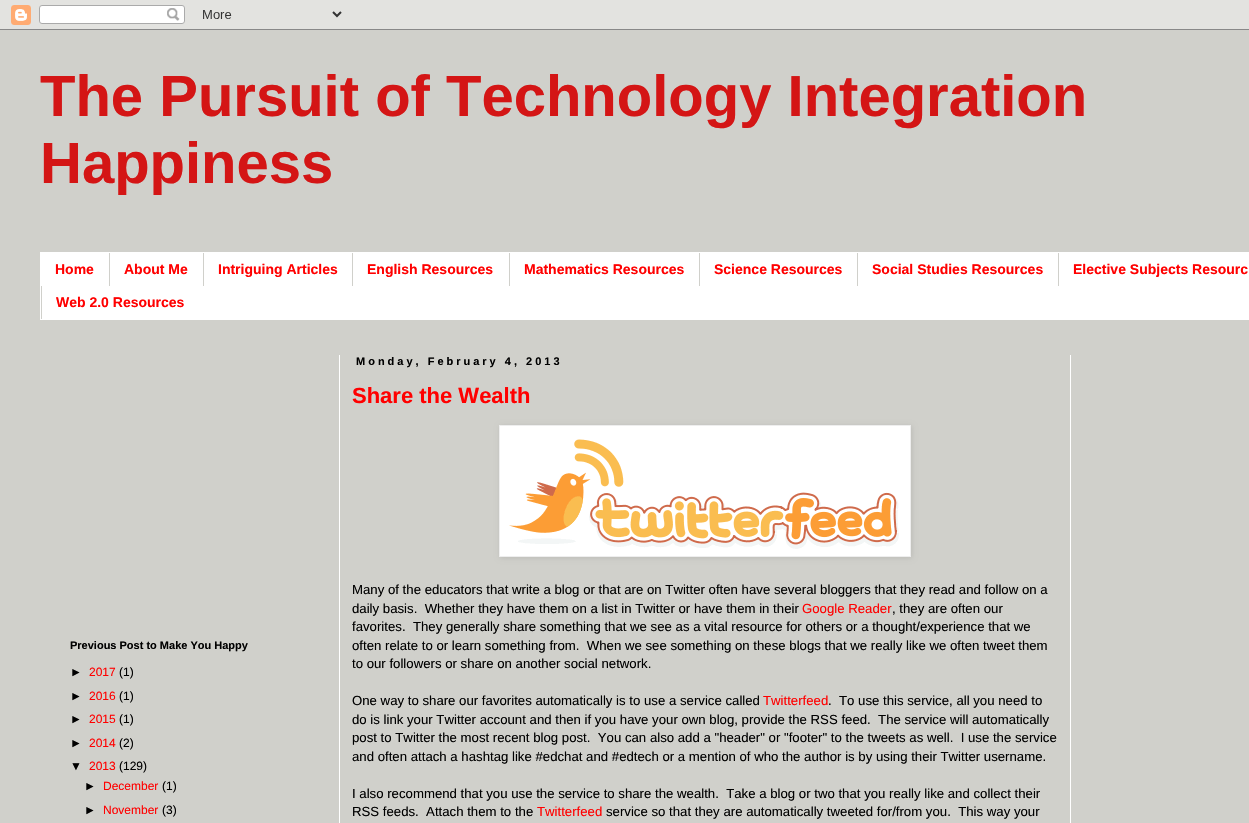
#include "include/core/SkBlurTypes.h"
#include "include/core/SkCanvas.h"
#include "include/core/SkData.h"
#include "include/core/SkFont.h"
#include "include/core/SkFontMgr.h"
#include "include/core/SkImage.h"
#include "include/core/SkMaskFilter.h"
#include "include/core/SkPaint.h"
#include "include/core/SkPathBuilder.h"
#include "include/core/SkTextBlob.h"
#include "include/effects/SkDashPathEffect.h"
#include "include/effects/SkGradientShader.h"
#include "include/utils/SkParsePath.h"

extern sk_sp<SkFontMgr> fontMgr;

void draw(SkCanvas* canvas) {
    SkPaint p;
    p.setAntiAlias(true);
    auto font = [&](const char* family, int weight, float size, bool italic = false) {
        SkFontStyle style(weight, SkFontStyle::kNormal_Width,
            italic ? SkFontStyle::kItalic_Slant : SkFontStyle::kUpright_Slant);
        SkFont result(fontMgr->matchFamilyStyle(family, style), size);
        result.setSubpixel(true);
        return result;
    };
    auto drawTracked = [&](const char* s, float x, float y, const SkFont& font, const SkPaint& ink, float letter, float word) {
        std::vector<SkGlyphID> glyphs(font.countText(s, strlen(s), SkTextEncoding::kUTF8));
        std::vector<float> xs(glyphs.size());
        font.textToGlyphs(s, strlen(s), SkTextEncoding::kUTF8, glyphs);
        font.getXPos(glyphs, xs, x);
        float extra = 0;
        for (size_t i = 0; i < glyphs.size(); i++) {
            xs[i] += extra;
            extra += letter + word * (glyphs[i] == font.unicharToGlyph(' '));
        }
        canvas->drawTextBlob(SkTextBlob::MakeFromPosHGlyphs(glyphs, xs, y, font), 0, 0, ink);
    };
    auto drawPhoto = [&](const char* path, float l, float t, float r, float b) {
        auto image = SkImages::DeferredFromEncodedData(SkData::MakeFromFileName(path));
        canvas->drawImageRect(image, SkRect::MakeLTRB(l, t, r, b), SkSamplingOptions());
    };
    canvas->clear(0xFFD0D0CB);
    drawPhoto("media/1.png", 0, 0, 1249, 30);
    auto font1 = font("Liberation Sans", 700, 58);
    p.setColor(0xFFD41515);
    canvas->drawString("The Pursuit of Technology Integration", 40, 116, font1, p);
    canvas->drawString("Happiness", 40, 183, font1, p);
    p.setColor(0xFFFFFFFF);
    canvas->drawRect(SkRect::MakeLTRB(40, 252, 1249, 320), p);
    auto font2 = font("Liberation Sans", 700, 14);
    p.setColor(0xFFFF0000);
    canvas->drawString("Home", 55, 274, font2, p);
    p.setColor(0xFFD0D0CB);
    canvas->drawRect(SkRect::MakeLTRB(109, 253, 110, 286), p);
    p.setColor(0xFFFF0000);
    canvas->drawString("About Me", 124, 274, font2, p);
    p.setColor(0xFFD0D0CB);
    canvas->drawRect(SkRect::MakeLTRB(203, 253, 204, 286), p);
    p.setColor(0xFFFF0000);
    canvas->drawString("Intriguing Articles", 218, 274, font2, p);
    p.setColor(0xFFD0D0CB);
    canvas->drawRect(SkRect::MakeLTRB(352, 253, 353, 286), p);
    p.setColor(0xFFFF0000);
    canvas->drawString("English Resources", 367, 274, font2, p);
    p.setColor(0xFFD0D0CB);
    canvas->drawRect(SkRect::MakeLTRB(509, 253, 510, 286), p);
    p.setColor(0xFFFF0000);
    canvas->drawString("Mathematics Resources", 524, 274, font2, p);
    p.setColor(0xFFD0D0CB);
    canvas->drawRect(SkRect::MakeLTRB(699, 253, 700, 286), p);
    p.setColor(0xFFFF0000);
    canvas->drawString("Science Resources", 714, 274, font2, p);
    p.setColor(0xFFD0D0CB);
    canvas->drawRect(SkRect::MakeLTRB(857, 253, 858, 286), p);
    p.setColor(0xFFFF0000);
    canvas->drawString("Social Studies Resources", 872, 274, font2, p);
    p.setColor(0xFFD0D0CB);
    canvas->drawRect(SkRect::MakeLTRB(1058, 253, 1059, 286), p);
    p.setColor(0xFFFF0000);
    canvas->drawString("Elective Subjects Resourc", 1073, 274, font2, p);
    p.setColor(0xFFD0D0CB);
    canvas->drawRect(SkRect::MakeLTRB(41, 286, 42, 319), p);
    p.setColor(0xFFFF0000);
    canvas->drawString("Web 2.0 Resources", 56, 307, font2, p);
    p.setColor(0xFFFFFFFF);
    canvas->drawRect(SkRect::MakeLTRB(339, 355, 340, 823), p);
    canvas->drawRect(SkRect::MakeLTRB(1070, 355, 1071, 823), p);
    auto font3 = font("Liberation Sans", 700, 11);
    p.setColor(0xFF000000);
    canvas->drawString("Previous Post to Make You Happy", 70, 649, font3, p);
    auto font4 = font("Liberation Sans", 400, 12);
    canvas->drawString("►", 70, 676, font4, p);
    p.setColor(0xFFFF0000);
    canvas->drawString("2017", 89, 676, font4, p);
    p.setColor(0xFF000000);
    canvas->drawString("(1)", 119, 676, font4, p);
    canvas->drawString("►", 70, 700, font4, p);
    p.setColor(0xFFFF0000);
    canvas->drawString("2016", 89, 700, font4, p);
    p.setColor(0xFF000000);
    canvas->drawString("(1)", 119, 700, font4, p);
    canvas->drawString("►", 70, 723, font4, p);
    p.setColor(0xFFFF0000);
    canvas->drawString("2015", 89, 723, font4, p);
    p.setColor(0xFF000000);
    canvas->drawString("(1)", 119, 723, font4, p);
    canvas->drawString("►", 70, 747, font4, p);
    p.setColor(0xFFFF0000);
    canvas->drawString("2014", 89, 747, font4, p);
    p.setColor(0xFF000000);
    canvas->drawString("(2)", 119, 747, font4, p);
    canvas->drawString("▼", 70, 770, font4, p);
    p.setColor(0xFFFF0000);
    canvas->drawString("2013", 89, 770, font4, p);
    p.setColor(0xFF000000);
    canvas->drawString("(129)", 119, 770, font4, p);
    canvas->drawString("►", 84, 790, font4, p);
    p.setColor(0xFFFF0000);
    canvas->drawString("December", 103, 790, font4, p);
    p.setColor(0xFF000000);
    canvas->drawString("(1)", 162, 790, font4, p);
    canvas->drawString("►", 84, 814, font4, p);
    p.setColor(0xFFFF0000);
    canvas->drawString("November", 103, 814, font4, p);
    p.setColor(0xFF000000);
    canvas->drawString("(3)", 162, 814, font4, p);
    drawTracked("Monday, February 4, 2013", 356, 365, font3, p, 3, 0);
    auto font5 = font("Liberation Sans", 700, 22);
    p.setColor(0xFFFF0000);
    canvas->drawString("Share the Wealth", 352, 403, font5, p);
    p.setColor(0x1A000000);
    p.setMaskFilter(SkMaskFilter::MakeBlur(kNormal_SkBlurStyle, 2.5f));
    canvas->drawRect(SkRect::MakeLTRB(500, 426, 912, 558), p);
    p.setMaskFilter(nullptr);
    p.setColor(0xFFFFFFFF);
    canvas->drawRect(SkRect::MakeLTRB(499.5f, 425.5f, 910.5f, 556.5f), p);
    p.setStyle(SkPaint::kStroke_Style);
    p.setStrokeWidth(1);
    p.setColor(0xFFEEEEEE);
    canvas->drawRect(SkRect::MakeLTRB(499.5f, 425.5f, 910.5f, 556.5f), p);
    drawPhoto("media/2.png", 509, 439, 899, 549);
    auto font6 = font("Liberation Sans", 400, 13.2f);
    p.setStyle(SkPaint::kFill_Style);
    p.setColor(0xFF000000);
    canvas->drawString("Many of the educators that write a blog or that are on Twitter often have several bloggers that they read and follow on a", 352, 594, font6, p);
    canvas->drawString("daily basis.  Whether they have them on a list in Twitter or have them in their", 352, 613, font6, p);
    p.setColor(0xFFFF0000);
    canvas->drawString("Google Reader", 802, 613, font6, p);
    p.setColor(0xFF000000);
    {
        const struct { const char* s; float x, y; } items[] = {
            {", they are often our", 892, 613},
            {"favorites.  They generally share something that we see as a vital resource for others or a thought/experience that we", 352, 631},
            {"often relate to or learn something from.  When we see something on these blogs that we really like we often tweet them", 352, 650},
            {"to our followers or share on another social network.", 352, 668},
            {"One way to share our favorites automatically is to use a service called", 352, 705},
        };
        for (auto [s, x, y] : items) {
            canvas->drawString(s, x, y, font6, p);
        }
    }
    p.setColor(0xFFFF0000);
    canvas->drawString("Twitterfeed", 763, 705, font6, p);
    p.setColor(0xFF000000);
    {
        const struct { const char* s; float x, y; } items[] = {
            {".  To use this service, all you need to", 828, 705},
            {"do is link your Twitter account and then if you have your own blog, provide the RSS feed.  The service will automatically", 352, 724},
            {"post to Twitter the most recent blog post.  You can also add a \"header\" or \"footer\" to the tweets as well.  I use the service", 352, 742},
            {"and often attach a hashtag like #edchat and #edtech or a mention of who the author is by using their Twitter username.", 352, 761},
            {"I also recommend that you use the service to share the wealth.  Take a blog or two that you really like and collect their", 352, 798},
            {"RSS feeds.  Attach them to the", 352, 816},
        };
        for (auto [s, x, y] : items) {
            canvas->drawString(s, x, y, font6, p);
        }
    }
    p.setColor(0xFFFF0000);
    canvas->drawString("Twitterfeed", 537, 816, font6, p);
    p.setColor(0xFF000000);
    canvas->drawString("service so that they are automatically tweeted for/from you.  This way your", 606, 816, font6, p);
}
